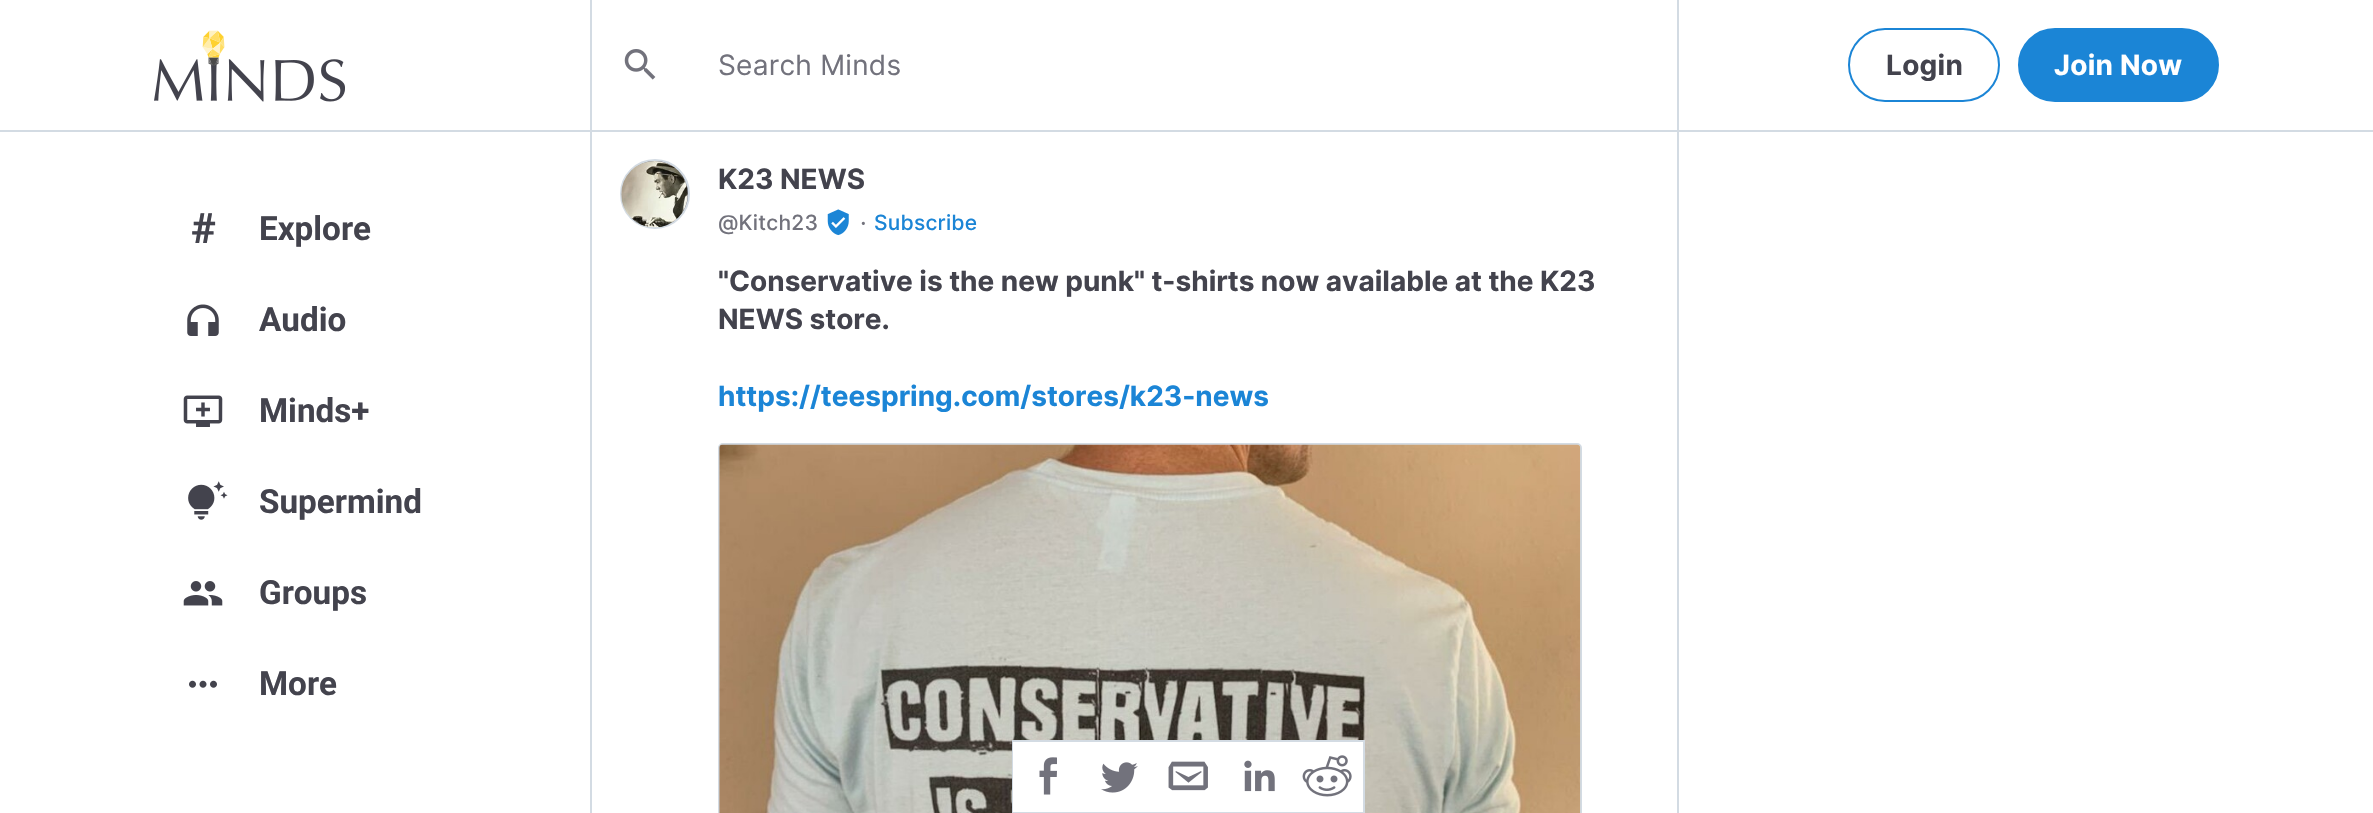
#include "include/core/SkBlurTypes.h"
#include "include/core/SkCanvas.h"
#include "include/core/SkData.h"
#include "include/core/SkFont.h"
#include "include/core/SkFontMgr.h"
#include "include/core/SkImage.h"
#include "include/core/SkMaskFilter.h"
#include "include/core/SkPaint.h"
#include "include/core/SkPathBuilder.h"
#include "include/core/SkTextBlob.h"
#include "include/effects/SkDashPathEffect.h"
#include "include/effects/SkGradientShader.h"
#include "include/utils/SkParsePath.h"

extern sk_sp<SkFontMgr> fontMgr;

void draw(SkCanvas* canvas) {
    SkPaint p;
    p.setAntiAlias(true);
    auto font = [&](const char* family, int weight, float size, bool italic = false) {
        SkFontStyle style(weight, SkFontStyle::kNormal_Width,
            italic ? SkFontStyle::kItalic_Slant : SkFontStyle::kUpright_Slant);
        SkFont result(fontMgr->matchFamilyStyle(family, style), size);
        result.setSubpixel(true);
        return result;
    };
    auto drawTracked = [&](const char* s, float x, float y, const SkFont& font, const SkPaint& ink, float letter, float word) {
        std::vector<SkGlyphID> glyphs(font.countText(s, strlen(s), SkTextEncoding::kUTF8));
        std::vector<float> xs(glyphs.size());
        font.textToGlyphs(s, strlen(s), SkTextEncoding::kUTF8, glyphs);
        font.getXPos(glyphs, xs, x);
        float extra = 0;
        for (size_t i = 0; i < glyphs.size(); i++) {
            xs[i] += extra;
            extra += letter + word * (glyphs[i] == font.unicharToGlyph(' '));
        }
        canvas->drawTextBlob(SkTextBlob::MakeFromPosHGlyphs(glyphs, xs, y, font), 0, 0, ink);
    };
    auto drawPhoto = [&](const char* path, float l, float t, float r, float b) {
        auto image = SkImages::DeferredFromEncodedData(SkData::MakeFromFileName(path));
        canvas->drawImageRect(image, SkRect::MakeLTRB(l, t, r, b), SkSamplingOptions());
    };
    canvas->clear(0xFFFFFFFF);
    {
        const struct { float l, t, r, b; SkColor color; } items[] = {
            {590, 131, 592, 813, 0xFFD3DBE3},
            {1677, 131, 1679, 813, 0xFFD3DBE3},
            {0, 130, 2373, 132, 0xFFD3DBE3},
            {590, 0, 592, 130, 0xFFD3DBE3},
        };
        for (auto [l, t, r, b, color] : items) {
            p.setColor(color);
            canvas->drawRect(SkRect::MakeLTRB(l, t, r, b), p);
        }
    }
    drawPhoto("media/1.png", 154, 30, 345, 102);
    canvas->drawRect(SkRect::MakeLTRB(1677, 0, 1679, 130), p);
    drawPhoto("media/2.png", 624, 49, 656, 80);
    auto font1 = font("Inter", 400, 28);
    p.setColor(0xFF72727C);
    drawTracked("Search Minds", 718, 75, font1, p, 0.25f, 0);
    p.setStyle(SkPaint::kStroke_Style);
    p.setStrokeWidth(2);
    p.setColor(0xFF1B85D6);
    canvas->drawRoundRect(SkRect::MakeLTRB(1849, 29, 1999, 101), 36, 36, p);
    auto font2 = font("Inter", 700, 28);
    p.setStyle(SkPaint::kFill_Style);
    p.setColor(0xFF43434D);
    drawTracked("Login", 1886, 75, font2, p, 0.25f, 0);
    p.setColor(0xFF1B85D6);
    canvas->drawRoundRect(SkRect::MakeLTRB(2019, 29, 2218, 101), 36, 36, p);
    p.setStyle(SkPaint::kStroke_Style);
    canvas->drawRoundRect(SkRect::MakeLTRB(2019, 29, 2218, 101), 36, 36, p);
    p.setStyle(SkPaint::kFill_Style);
    p.setColor(0xFFFFFFFF);
    drawTracked("Join Now", 2054, 75, font2, p, 0.25f, 0);
    auto font3 = font("Roboto", 700, 42);
    p.setColor(0xFF43434D);
    canvas->drawString("#", 191, 243, font3, p);
    auto font4 = font("Roboto", 700, 33.25f);
    canvas->drawString("Explore", 259, 240, font4, p);
    drawPhoto("media/3.png", 187, 304, 219, 336);
    canvas->drawString("Audio", 259, 331, font4, p);
    drawPhoto("media/4.png", 183, 395, 223, 427);
    canvas->drawString("Minds+", 259, 422, font4, p);
    drawPhoto("media/5.png", 188, 481, 228, 520);
    canvas->drawString("Supermind", 259, 513, font4, p);
    drawPhoto("media/6.png", 183, 581, 223, 606);
    canvas->drawString("Groups", 259, 604, font4, p);
    drawPhoto("media/7.png", 189, 680, 217, 688);
    canvas->drawString("More", 259, 695, font4, p);
    p.setColor(0xFF72727C);
    canvas->drawCircle(655, 194, 34, p);
    p.setStyle(SkPaint::kStroke_Style);
    p.setColor(0xFFD3DBE3);
    canvas->drawCircle(655, 194, 34, p);
    drawPhoto("media/8.png", 621, 161, 688, 228);
    p.setStyle(SkPaint::kFill_Style);
    p.setColor(0xFF43434D);
    canvas->drawString("K23 NEWS", 718, 189, font2, p);
    auto font5 = font("Inter", 500, 21);
    p.setColor(0xFF72727C);
    drawTracked("@Kitch23", 718, 230, font5, p, 0.25f, 0);
    drawPhoto("media/9.png", 827, 209, 849, 236);
    auto font6 = font("Inter", 400, 24);
    canvas->drawString("·", 860, 231, font6, p);
    p.setColor(0xFF1B85D6);
    drawTracked("Subscribe", 874, 230, font5, p, 0.25f, 0);
    p.setColor(0xFF43434D);
    canvas->drawString("\"Conservative is the new punk\" t-shirts now available at the K23", 718, 291, font2, p);
    canvas->drawString("NEWS store.", 718, 329, font2, p);
    p.setColor(0xFF1B85D6);
    canvas->drawString("https://teespring.com/stores/k23-news", 718, 406, font2, p);
    p.setStyle(SkPaint::kStroke_Style);
    p.setColor(0xFFD3DBE3);
    canvas->drawRoundRect(SkRect::MakeLTRB(719, 444, 1581, 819), 4, 4, p);
    drawPhoto("media/10.png", 719, 444, 1581, 813);
    canvas->drawRect(SkRect::MakeLTRB(1013, 741, 1364, 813), p);
    p.setStyle(SkPaint::kFill_Style);
    p.setColor(0xFFFFFFFF);
    canvas->drawRect(SkRect::MakeLTRB(1013, 742, 1363, 812), p);
    drawPhoto("media/11.png", 1039, 757, 1057, 795);
    drawPhoto("media/12.png", 1101, 762, 1138, 793);
    drawPhoto("media/13.png", 1168, 761, 1208, 791);
    drawPhoto("media/14.png", 1244, 760, 1275, 792);
    drawPhoto("media/15.png", 1302, 755, 1352, 797);
}
